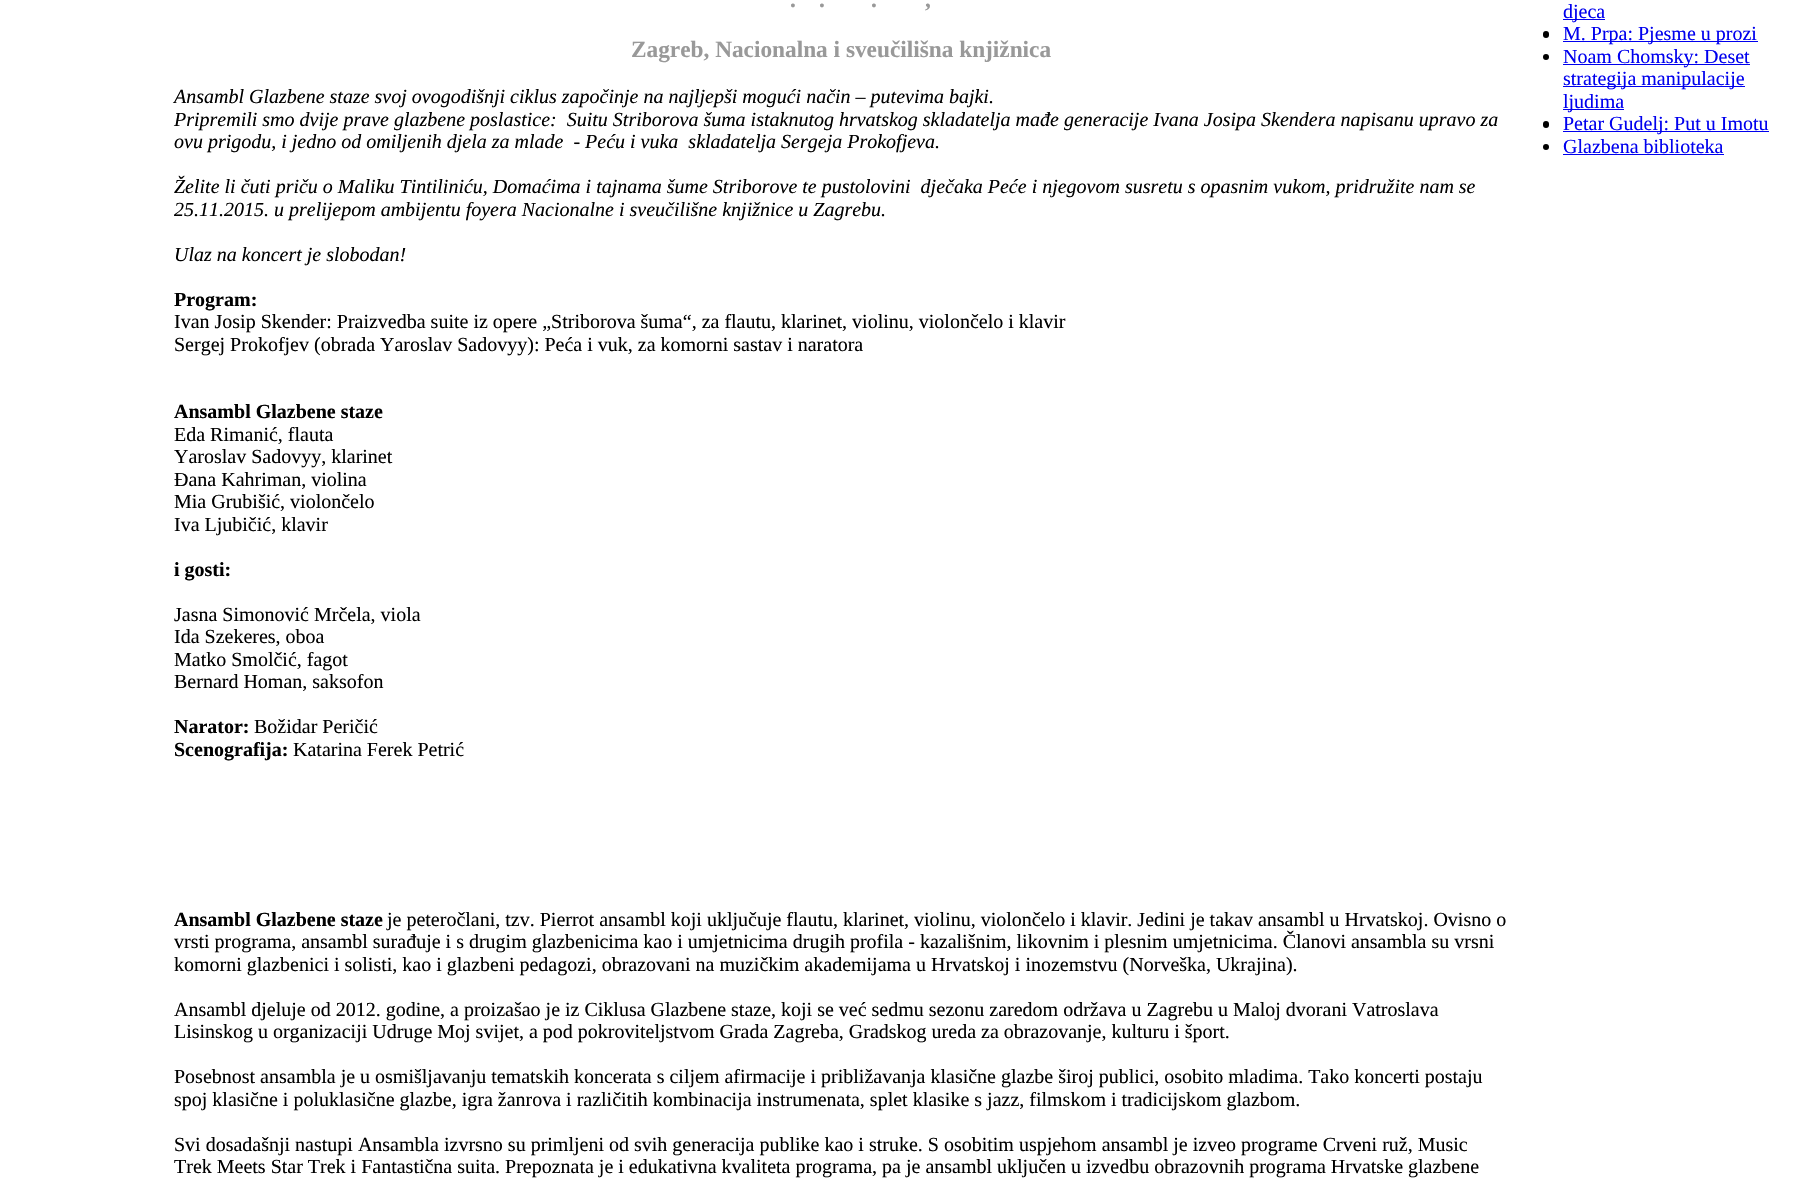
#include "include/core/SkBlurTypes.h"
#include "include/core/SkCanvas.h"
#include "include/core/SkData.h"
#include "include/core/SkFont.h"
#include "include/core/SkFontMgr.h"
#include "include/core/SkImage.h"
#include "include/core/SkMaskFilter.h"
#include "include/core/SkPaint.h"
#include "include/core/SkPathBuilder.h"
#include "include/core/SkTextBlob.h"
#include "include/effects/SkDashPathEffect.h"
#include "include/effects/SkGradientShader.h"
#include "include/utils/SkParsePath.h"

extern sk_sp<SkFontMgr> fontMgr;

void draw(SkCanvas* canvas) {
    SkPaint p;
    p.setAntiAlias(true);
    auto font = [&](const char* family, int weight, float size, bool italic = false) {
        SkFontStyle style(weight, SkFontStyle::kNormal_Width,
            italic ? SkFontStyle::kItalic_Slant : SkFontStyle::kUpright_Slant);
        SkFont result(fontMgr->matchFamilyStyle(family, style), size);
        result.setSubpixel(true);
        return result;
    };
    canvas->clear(0xFFFFFFFF);
    auto font1 = font("Liberation Serif", 700, 23.3f);
    p.setColor(0xFF999999);
    {
        const struct { const char* s; float x, y; } items[] = {
            {".", 790, 7},
            {".", 819, 7},
            {".", 871, 7},
            {",", 925, 7},
            {"Zagreb, Nacionalna i sveučilišna knjižnica", 631, 57},
        };
        for (auto [s, x, y] : items) {
            canvas->drawString(s, x, y, font1, p);
        }
    }
    auto font2 = font("Liberation Serif", 400, 20, true);
    p.setColor(0xFF000000);
    {
        const struct { const char* s; float x, y; } items[] = {
            {"Ansambl Glazbene staze svoj ovogodišnji ciklus započinje na najljepši mogući način – putevima bajki.", 174, 103},
            {"Pripremili smo dvije prave glazbene poslastice:  Suitu Striborova šuma istaknutog hrvatskog skladatelja mađe generacije Ivana Josipa Skendera napisanu upravo za", 174, 126},
            {"ovu prigodu, i jedno od omiljenih djela za mlade  - Peću i vuka  skladatelja Sergeja Prokofjeva.", 174, 148},
            {"Želite li čuti priču o Maliku Tintiliniću, Domaćima i tajnama šume Striborove te pustolovini  dječaka Peće i njegovom susretu s opasnim vukom, pridružite nam se", 174, 193},
            {"25.11.2015. u prelijepom ambijentu foyera Nacionalne i sveučilišne knjižnice u Zagrebu.", 174, 216},
            {"Ulaz na koncert je slobodan!", 174, 261},
        };
        for (auto [s, x, y] : items) {
            canvas->drawString(s, x, y, font2, p);
        }
    }
    auto font3 = font("Liberation Serif", 700, 20);
    canvas->drawString("Program:", 174, 306, font3, p);
    auto font4 = font("Liberation Serif", 400, 20);
    canvas->drawString("Ivan Josip Skender: Praizvedba suite iz opere „Striborova šuma“, za flautu, klarinet, violinu, violončelo i klavir", 174, 328, font4, p);
    canvas->drawString("Sergej Prokofjev (obrada Yaroslav Sadovyy): Peća i vuk, za komorni sastav i naratora", 174, 351, font4, p);
    canvas->drawString("Ansambl Glazbene staze", 174, 418, font3, p);
    {
        const struct { const char* s; float x, y; } items[] = {
            {"Eda Rimanić, flauta", 174, 441},
            {"Yaroslav Sadovyy, klarinet", 174, 463},
            {"Đana Kahriman, violina", 174, 486},
            {"Mia Grubišić, violončelo", 174, 508},
            {"Iva Ljubičić, klavir", 174, 531},
        };
        for (auto [s, x, y] : items) {
            canvas->drawString(s, x, y, font4, p);
        }
    }
    canvas->drawString("i gosti:", 174, 576, font3, p);
    {
        const struct { const char* s; float x, y; } items[] = {
            {"Jasna Simonović Mrčela, viola", 174, 621},
            {"Ida Szekeres, oboa", 174, 643},
            {"Matko Smolčić, fagot", 174, 666},
            {"Bernard Homan, saksofon", 174, 688},
        };
        for (auto [s, x, y] : items) {
            canvas->drawString(s, x, y, font4, p);
        }
    }
    canvas->drawString("Narator:", 174, 733, font3, p);
    canvas->drawString("Božidar Peričić", 254, 733, font4, p);
    canvas->drawString("Scenografija:", 174, 756, font3, p);
    canvas->drawString("Katarina Ferek Petrić", 293, 756, font4, p);
    canvas->drawString("Ansambl Glazbene staze", 174, 926, font3, p);
    {
        const struct { const char* s; float x, y; } items[] = {
            {"je peteročlani, tzv. Pierrot ansambl koji uključuje flautu, klarinet, violinu, violončelo i klavir. Jedini je takav ansambl u Hrvatskoj. Ovisno o", 387, 926},
            {"vrsti programa, ansambl surađuje i s drugim glazbenicima kao i umjetnicima drugih profila - kazališnim, likovnim i plesnim umjetnicima. Članovi ansambla su vrsni", 174, 948},
            {"komorni glazbenici i solisti, kao i glazbeni pedagozi, obrazovani na muzičkim akademijama u Hrvatskoj i inozemstvu (Norveška, Ukrajina).", 174, 971},
            {"Ansambl djeluje od 2012. godine, a proizašao je iz Ciklusa Glazbene staze, koji se već sedmu sezonu zaredom održava u Zagrebu u Maloj dvorani Vatroslava", 174, 1016},
            {"Lisinskog u organizaciji Udruge Moj svijet, a pod pokroviteljstvom Grada Zagreba, Gradskog ureda za obrazovanje, kulturu i šport.", 174, 1038},
            {"Posebnost ansambla je u osmišljavanju tematskih koncerata s ciljem afirmacije i približavanja klasične glazbe široj publici, osobito mladima. Tako koncerti postaju", 174, 1083},
            {"spoj klasične i poluklasične glazbe, igra žanrova i različitih kombinacija instrumenata, splet klasike s jazz, filmskom i tradicijskom glazbom.", 174, 1106},
            {"Svi dosadašnji nastupi Ansambla izvrsno su primljeni od svih generacija publike kao i struke. S osobitim uspjehom ansambl je izveo programe Crveni ruž, Music", 174, 1151},
            {"Trek Meets Star Trek i Fantastična suita. Prepoznata je i edukativna kvaliteta programa, pa je ansambl uključen u izvedbu obrazovnih programa Hrvatske glazbene", 174, 1173},
        };
        for (auto [s, x, y] : items) {
            canvas->drawString(s, x, y, font4, p);
        }
    }
    p.setColor(0xFF0000EE);
    canvas->drawRect(SkRect::MakeLTRB(1563, 19, 1605, 20), p);
    canvas->drawString("djeca", 1563, 18, font4, p);
    p.setColor(0xFF000000);
    canvas->drawRoundRect(SkRect::MakeLTRB(1543, 31, 1549, 38), 3, 3, p);
    p.setColor(0xFF0000EE);
    canvas->drawRect(SkRect::MakeLTRB(1563, 41, 1758, 42), p);
    canvas->drawString("M. Prpa: Pjesme u prozi", 1563, 40, font4, p);
    p.setColor(0xFF000000);
    canvas->drawCircle(1546, 57, 3, p);
    p.setColor(0xFF0000EE);
    canvas->drawRect(SkRect::MakeLTRB(1563, 64, 1750, 65), p);
    canvas->drawString("Noam Chomsky: Deset", 1563, 63, font4, p);
    canvas->drawRect(SkRect::MakeLTRB(1563, 86, 1745, 87), p);
    canvas->drawString("strategija manipulacije", 1563, 85, font4, p);
    canvas->drawRect(SkRect::MakeLTRB(1563, 109, 1624, 110), p);
    canvas->drawString("ljudima", 1563, 108, font4, p);
    p.setColor(0xFF000000);
    canvas->drawRoundRect(SkRect::MakeLTRB(1543, 121, 1549, 128), 3, 3, p);
    p.setColor(0xFF0000EE);
    canvas->drawRect(SkRect::MakeLTRB(1563, 131, 1769, 132), p);
    canvas->drawString("Petar Gudelj: Put u Imotu", 1563, 130, font4, p);
    p.setColor(0xFF000000);
    canvas->drawCircle(1546, 147, 3, p);
    p.setColor(0xFF0000EE);
    canvas->drawString("Glazbena biblioteka", 1563, 153, font4, p);
    canvas->drawRect(SkRect::MakeLTRB(1563, 154, 1724, 155), p);
}
